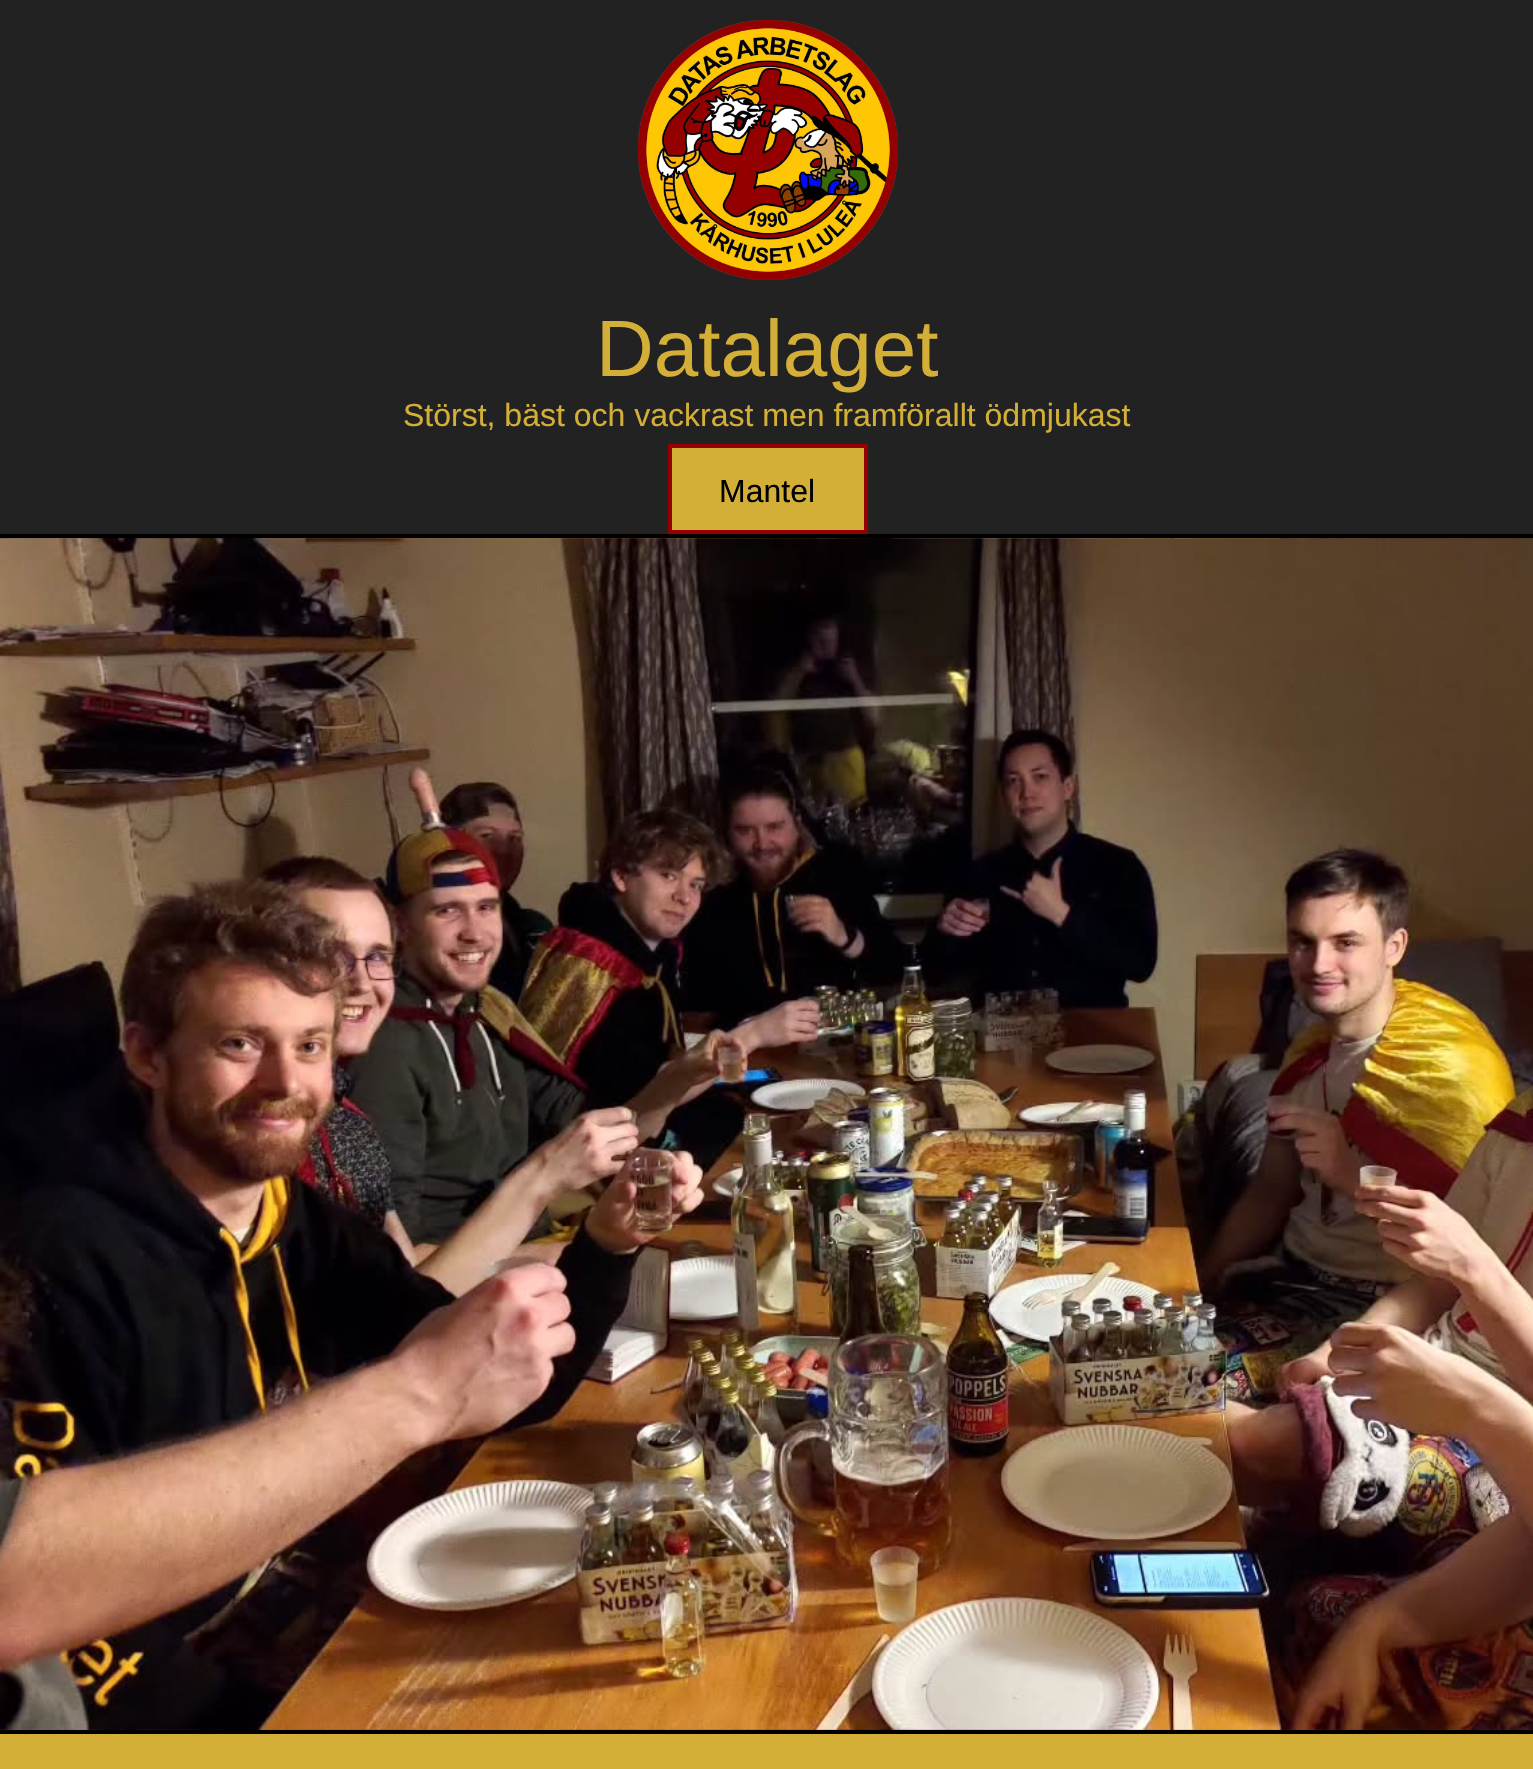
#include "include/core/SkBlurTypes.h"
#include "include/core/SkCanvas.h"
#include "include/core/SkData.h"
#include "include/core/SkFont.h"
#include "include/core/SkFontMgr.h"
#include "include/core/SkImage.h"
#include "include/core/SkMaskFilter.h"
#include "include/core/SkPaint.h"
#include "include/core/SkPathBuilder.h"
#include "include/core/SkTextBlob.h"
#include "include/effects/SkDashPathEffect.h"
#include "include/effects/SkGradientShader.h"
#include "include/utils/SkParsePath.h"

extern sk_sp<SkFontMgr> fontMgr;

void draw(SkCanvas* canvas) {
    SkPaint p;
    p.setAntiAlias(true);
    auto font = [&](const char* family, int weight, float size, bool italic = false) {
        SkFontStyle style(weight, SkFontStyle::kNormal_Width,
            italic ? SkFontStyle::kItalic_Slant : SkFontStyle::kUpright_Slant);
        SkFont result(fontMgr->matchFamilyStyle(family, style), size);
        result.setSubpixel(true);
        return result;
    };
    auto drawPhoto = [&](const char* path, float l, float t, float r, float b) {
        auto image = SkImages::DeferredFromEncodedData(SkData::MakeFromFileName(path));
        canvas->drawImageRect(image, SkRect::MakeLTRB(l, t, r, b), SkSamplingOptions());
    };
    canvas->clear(0xFFD4AF37);
    p.setColor(0xFF222222);
    canvas->drawRect(SkRect::MakeLTRB(0, 0, 1533, 534), p);
    drawPhoto("media/1.png", 638, 20, 899, 281);
    auto font1 = font("Liberation Sans", 400, 80);
    p.setColor(0xFFD4AF37);
    canvas->drawString("Datalaget", 596, 376, font1, p);
    auto font2 = font("Liberation Sans", 400, 32);
    canvas->drawString("Störst, bäst och vackrast men framförallt ödmjukast", 403, 426, font2, p);
    canvas->drawRect(SkRect::MakeLTRB(670, 446, 866, 532), p);
    p.setStyle(SkPaint::kStroke_Style);
    p.setStrokeWidth(4);
    p.setColor(0xFF940000);
    canvas->drawRect(SkRect::MakeLTRB(670, 446, 866, 532), p);
    p.setStyle(SkPaint::kFill_Style);
    p.setColor(0xFF000000);
    canvas->drawString("Mantel", 719, 502, font2, p);
    drawPhoto("media/2.png", 0, 538, 1533, 1730);
    canvas->drawRect(SkRect::MakeLTRB(0, 534, 1533, 538), p);
    canvas->drawRect(SkRect::MakeLTRB(0, 1730, 1533, 1734), p);
}
